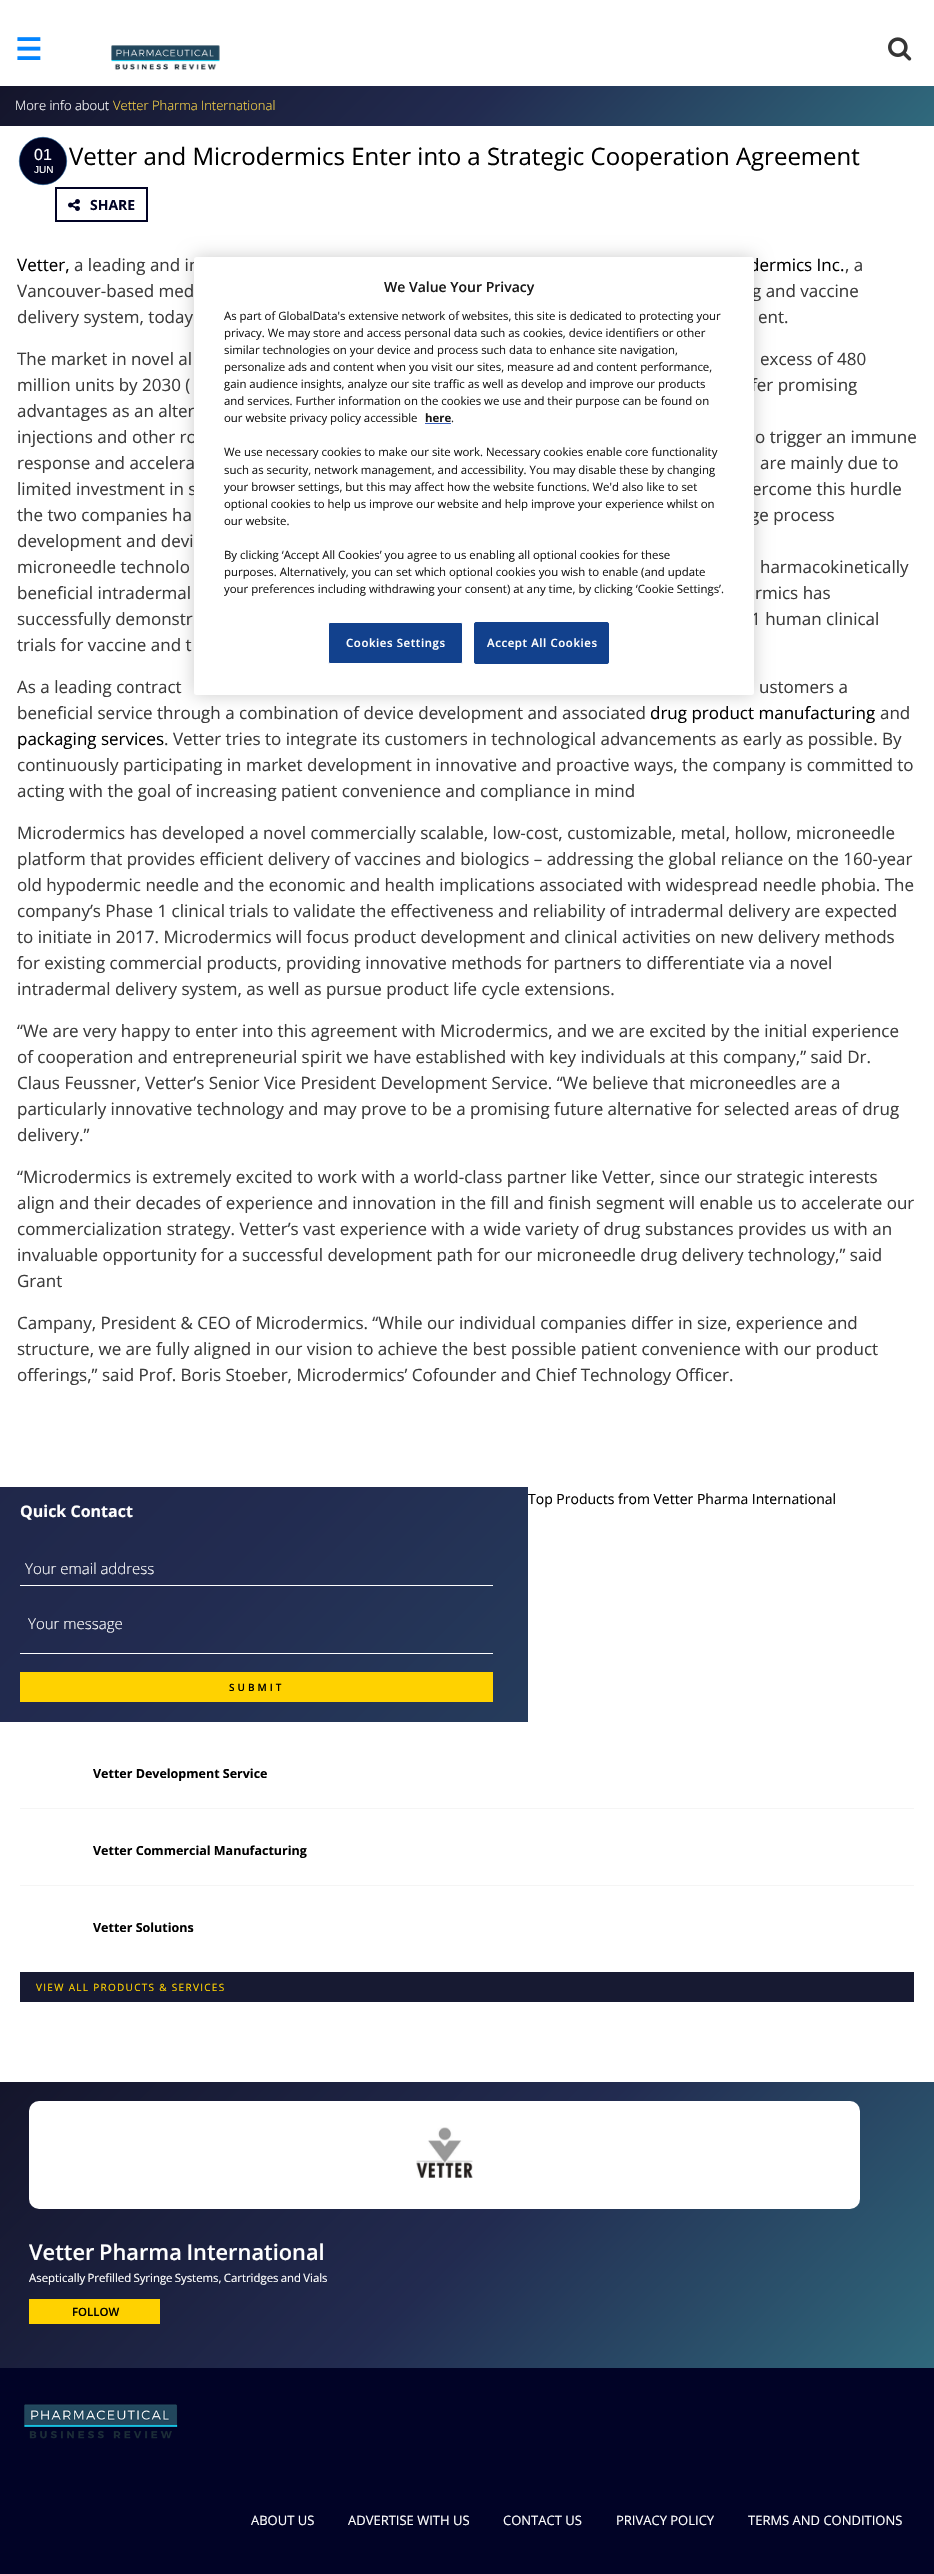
#include "include/core/SkBlurTypes.h"
#include "include/core/SkCanvas.h"
#include "include/core/SkData.h"
#include "include/core/SkFont.h"
#include "include/core/SkFontMgr.h"
#include "include/core/SkImage.h"
#include "include/core/SkMaskFilter.h"
#include "include/core/SkPaint.h"
#include "include/core/SkPathBuilder.h"
#include "include/core/SkTextBlob.h"
#include "include/effects/SkDashPathEffect.h"
#include "include/effects/SkGradientShader.h"
#include "include/utils/SkParsePath.h"

extern sk_sp<SkFontMgr> fontMgr;

void draw(SkCanvas* canvas) {
    SkPaint p;
    p.setAntiAlias(true);
    auto font = [&](const char* family, int weight, float size, bool italic = false) {
        SkFontStyle style(weight, SkFontStyle::kNormal_Width,
            italic ? SkFontStyle::kItalic_Slant : SkFontStyle::kUpright_Slant);
        SkFont result(fontMgr->matchFamilyStyle(family, style), size);
        result.setSubpixel(true);
        return result;
    };
    auto drawTracked = [&](const char* s, float x, float y, const SkFont& font, const SkPaint& ink, float letter, float word) {
        std::vector<SkGlyphID> glyphs(font.countText(s, strlen(s), SkTextEncoding::kUTF8));
        std::vector<float> xs(glyphs.size());
        font.textToGlyphs(s, strlen(s), SkTextEncoding::kUTF8, glyphs);
        font.getXPos(glyphs, xs, x);
        float extra = 0;
        for (size_t i = 0; i < glyphs.size(); i++) {
            xs[i] += extra;
            extra += letter + word * (glyphs[i] == font.unicharToGlyph(' '));
        }
        canvas->drawTextBlob(SkTextBlob::MakeFromPosHGlyphs(glyphs, xs, y, font), 0, 0, ink);
    };
    auto drawPhoto = [&](const char* path, float l, float t, float r, float b) {
        auto image = SkImages::DeferredFromEncodedData(SkData::MakeFromFileName(path));
        canvas->drawImageRect(image, SkRect::MakeLTRB(l, t, r, b), SkSamplingOptions());
    };
    canvas->clear(0xFFFFFFFF);
    auto font1 = font("DejaVu Sans", 700, 30);
    p.setColor(0xFF0285FF);
    canvas->drawString("☰", 15, 60, font1, p);
    drawPhoto("media/1.png", 111, 45, 220, 70);
    drawPhoto("media/2.png", 888, 37, 912, 61);
    {
        const SkColor colors[] = {0xFF14152B, 0xFF222B50, 0xFF306A7D};
        const float stops[] = {0, 0.51f, 1};
        const SkPoint ends[] = {{224, -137}, {711, 350}};
        p.setShader(SkGradientShader::MakeLinear(ends, colors, stops, 3, SkTileMode::kClamp));
        p.setAlpha(255);
    }
    canvas->drawRect(SkRect::MakeLTRB(0, 86, 934, 126), p);
    auto font2 = font("Open Sans", 300, 13);
    p.setShader(nullptr);
    p.setColor(0xFFFFFFFF);
    canvas->drawString("More info about", 15, 110, font2, p);
    p.setColor(0xFFF8D348);
    canvas->drawString("Vetter Pharma International", 113, 110, font2, p);
    p.setColor(0xFF010321);
    canvas->drawCircle(43, 161, 23.7f, p);
    p.setStyle(SkPaint::kStroke_Style);
    p.setStrokeWidth(0.6f);
    p.setColor(0xFF125592);
    canvas->drawCircle(43, 161, 23.7f, p);
    auto font3 = font("Liberation Sans", 400, 16);
    p.setStyle(SkPaint::kFill_Style);
    p.setColor(0xFFFFFFFF);
    canvas->drawString("01", 34, 160, font3, p);
    auto font4 = font("Liberation Sans", 400, 10);
    canvas->drawString("JUN", 34, 173, font4, p);
    auto font5 = font("Open Sans", 400, 24);
    p.setColor(0xFF000000);
    canvas->drawString("Vetter and Microdermics Enter into a Strategic Cooperation Agreement", 69, 165, font5, p);
    p.setStyle(SkPaint::kStroke_Style);
    p.setStrokeWidth(2);
    p.setColor(0xFF010325);
    canvas->drawRect(SkRect::MakeLTRB(56, 188, 147, 221), p);
    drawPhoto("media/3.png", 68, 199, 80, 211);
    auto font6 = font("Open Sans", 700, 14);
    p.setStyle(SkPaint::kFill_Style);
    canvas->drawString("SHARE", 90, 210, font6, p);
    auto font7 = font("Open Sans", 400, 17);
    p.setColor(0xFF000000);
    canvas->drawString("Vetter,", 17, 271, font7, p);
    p.setColor(0xFF3C3C3C);
    canvas->drawString("a leading and in", 74, 271, font7, p);
    p.setColor(0xFF000000);
    canvas->drawString("dermics Inc.", 749, 271, font7, p);
    p.setColor(0xFF3C3C3C);
    {
        const struct { const char* s; float x, y; } items[] = {
            {", a", 845, 271},
            {"Vancouver-based med", 17, 297},
            {"g and vaccine", 752, 297},
            {"delivery system, today", 17, 323},
            {"ent.", 758, 323},
            {"The market in novel al", 17, 365},
            {"excess of 480", 760, 365},
            {"million units by 2030 (", 17, 391},
            {"fer promising", 751, 391},
            {"advantages as an alter", 17, 417},
            {"injections and other ro", 17, 443},
            {"o trigger an immune", 755, 443},
            {"response and accelera", 17, 469},
            {"are mainly due to", 760, 469},
            {"limited investment in s", 17, 495},
            {"ercome this hurdle", 752, 495},
            {"the two companies ha", 17, 521},
            {"ge process", 750, 521},
            {"development and devi", 17, 547},
            {"microneedle technolo", 17, 573},
            {"harmacokinetically", 760, 573},
            {"beneficial intradermal", 17, 599},
            {"rmics has", 755, 599},
            {"successfully demonstr", 17, 625},
            {"1 human clinical", 751, 625},
            {"trials for vaccine and t", 17, 651},
            {"As a leading contract", 17, 693},
            {"ustomers a", 759, 693},
            {"beneficial service through a combination of device development and associated", 17, 719},
        };
        for (auto [s, x, y] : items) {
            canvas->drawString(s, x, y, font7, p);
        }
    }
    p.setColor(0xFF000000);
    canvas->drawString("drug product manufacturing", 650, 719, font7, p);
    p.setColor(0xFF3C3C3C);
    canvas->drawString("and", 880, 719, font7, p);
    p.setColor(0xFF000000);
    canvas->drawString("packaging services", 17, 745, font7, p);
    p.setColor(0xFF3C3C3C);
    {
        const struct { const char* s; float x, y; } items[] = {
            {". Vetter tries to integrate its customers in technological advancements as early as possible. By", 164, 745},
            {"continuously participating in market development in innovative and proactive ways, the company is committed to", 17, 771},
            {"acting with the goal of increasing patient convenience and compliance in mind", 17, 797},
            {"Microdermics has developed a novel commercially scalable, low-cost, customizable, metal, hollow, microneedle", 17, 839},
            {"platform that provides efficient delivery of vaccines and biologics – addressing the global reliance on the 160-year", 17, 865},
            {"old hypodermic needle and the economic and health implications associated with widespread needle phobia. The", 17, 891},
            {"company’s Phase 1 clinical trials to validate the effectiveness and reliability of intradermal delivery are expected", 17, 917},
            {"to initiate in 2017. Microdermics will focus product development and clinical activities on new delivery methods", 17, 943},
            {"for existing commercial products, providing innovative methods for partners to differentiate via a novel", 17, 969},
            {"intradermal delivery system, as well as pursue product life cycle extensions.", 17, 995},
            {"“We are very happy to enter into this agreement with Microdermics, and we are excited by the initial experience", 17, 1037},
            {"of cooperation and entrepreneurial spirit we have established with key individuals at this company,” said Dr.", 17, 1063},
            {"Claus Feussner, Vetter’s Senior Vice President Development Service. “We believe that microneedles are a", 17, 1089},
            {"particularly innovative technology and may prove to be a promising future alternative for selected areas of drug", 17, 1115},
            {"delivery.”", 17, 1141},
            {"“Microdermics is extremely excited to work with a world-class partner like Vetter, since our strategic interests", 17, 1183},
            {"align and their decades of experience and innovation in the fill and finish segment will enable us to accelerate our", 17, 1209},
            {"commercialization strategy. Vetter’s vast experience with a wide variety of drug substances provides us with an", 17, 1235},
            {"invaluable opportunity for a successful development path for our microneedle drug delivery technology,” said", 17, 1261},
            {"Grant", 17, 1287},
            {"Campany, President & CEO of Microdermics. “While our individual companies differ in size, experience and", 17, 1329},
            {"structure, we are fully aligned in our vision to achieve the best possible patient convenience with our product", 17, 1355},
            {"offerings,” said Prof. Boris Stoeber, Microdermics’ Cofounder and Chief Technology Officer.", 17, 1381},
        };
        for (auto [s, x, y] : items) {
            canvas->drawString(s, x, y, font7, p);
        }
    }
    auto font8 = font("Open Sans", 400, 14);
    p.setColor(0xFF000000);
    canvas->drawString("Top Products from Vetter Pharma International", 528, 1504, font8, p);
    p.setColor(0xFFF5F5F5);
    canvas->drawRect(SkRect::MakeLTRB(20, 1808, 914, 1809), p);
    auto font9 = font("Open Sans", 700, 12.5f);
    p.setColor(0xFF000000);
    canvas->drawString("Vetter Development Service", 93, 1778, font9, p);
    p.setColor(0xFFF5F5F5);
    canvas->drawRect(SkRect::MakeLTRB(20, 1885, 914, 1886), p);
    p.setColor(0xFF000000);
    canvas->drawString("Vetter Commercial Manufacturing", 93, 1855, font9, p);
    canvas->drawString("Vetter Solutions", 93, 1932, font9, p);
    p.setColor(0xFF171A32);
    canvas->drawRect(SkRect::MakeLTRB(20, 1972, 914, 2002), p);
    auto font10 = font("Open Sans", 400, 10);
    p.setColor(0xFFFFD200);
    drawTracked("VIEW ALL PRODUCTS & SERVICES", 36, 1991, font10, p, 1.3f, 0);
    {
        const SkColor colors[] = {0xFF14152B, 0xFF222B50, 0xFF306A7D};
        const float stops[] = {0, 0.51f, 1};
        const SkPoint ends[] = {{-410, 410}, {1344, 2164}};
        p.setShader(SkGradientShader::MakeLinear(ends, colors, stops, 3, SkTileMode::kClamp));
        p.setAlpha(255);
    }
    canvas->drawRect(SkRect::MakeLTRB(0, 1487, 528, 1722), p);
    auto font11 = font("Open Sans", 700, 16);
    p.setShader(nullptr);
    p.setColor(0xFFFFFFFF);
    canvas->drawString("Quick Contact", 20, 1517, font11, p);
    canvas->drawRect(SkRect::MakeLTRB(20, 1585, 493, 1586), p);
    auto font12 = font("Open Sans", 300, 15);
    canvas->drawString("Your email address", 25, 1574, font12, p);
    canvas->drawRect(SkRect::MakeLTRB(20, 1653, 493, 1654), p);
    canvas->drawString("Your message", 28, 1629, font12, p);
    p.setColor(0xFFFFD200);
    canvas->drawRect(SkRect::MakeLTRB(20, 1672, 493, 1702), p);
    auto font13 = font("Open Sans", 600, 10);
    p.setColor(0xFF000000);
    drawTracked("SUBMIT", 229, 1691, font13, p, 3, 0);
    {
        const SkColor colors[] = {0xFF14152B, 0xFF222B50, 0xFF306A7D};
        const float stops[] = {0, 0.51f, 1};
        const SkPoint ends[] = {{160, 1923}, {775, 2538}};
        p.setShader(SkGradientShader::MakeLinear(ends, colors, stops, 3, SkTileMode::kClamp));
        p.setAlpha(255);
    }
    canvas->drawRect(SkRect::MakeLTRB(0, 2082, 934, 2368), p);
    p.setShader(nullptr);
    p.setColor(0xFFFFFFFF);
    canvas->drawRoundRect(SkRect::MakeLTRB(29, 2101, 860, 2209), 10, 10, p);
    drawPhoto("media/4.png", 416, 2127, 473, 2178);
    auto font14 = font("Open Sans", 600, 21.8f);
    drawTracked("Vetter Pharma International", 29, 2260, font14, p, 0, -1);
    auto font15 = font("Open Sans", 400, 11.4f);
    drawTracked("Aseptically Prefilled Syringe Systems, Cartridges and Vials", 29, 2282, font15, p, 0, -0.75f);
    p.setColor(0xFFFFD200);
    canvas->drawRect(SkRect::MakeLTRB(29, 2299, 160, 2324), p);
    auto font16 = font("Open Sans", 600, 11.4f);
    p.setColor(0xFF000000);
    canvas->drawString("FOLLOW", 72, 2316, font16, p);
    p.setColor(0xFF010326);
    canvas->drawRect(SkRect::MakeLTRB(0, 2368, 934, 2574), p);
    drawPhoto("media/5.png", 24, 2404, 178, 2439);
    auto font17 = font("Open Sans", 400, 13);
    p.setColor(0xFFFFFFFF);
    {
        const struct { const char* s; float x, y; } items[] = {
            {"ABOUT US", 251, 2525},
            {"ADVERTISE WITH US", 348, 2525},
            {"CONTACT US", 503, 2525},
            {"PRIVACY POLICY", 616, 2525},
            {"TERMS AND CONDITIONS", 748, 2525},
        };
        for (auto [s, x, y] : items) {
            canvas->drawString(s, x, y, font17, p);
        }
    }
    p.setColor(0x33000000);
    p.setMaskFilter(SkMaskFilter::MakeBlur(kNormal_SkBlurStyle, 9));
    canvas->drawRoundRect(SkRect::MakeLTRB(194, 257, 754, 695), 2.5f, 2.5f, p);
    p.setMaskFilter(nullptr);
    p.setColor(0xFFFFFFFF);
    canvas->drawRoundRect(SkRect::MakeLTRB(194, 257, 754, 695), 2.5f, 2.5f, p);
    auto font18 = font("Open Sans", 600, 14);
    p.setColor(0xFF1A1A1A);
    canvas->drawString("We Value Your Privacy", 384, 292, font18, p);
    {
        const struct { const char* s; float x, y; } items[] = {
            {"As part of GlobalData's extensive network of websites, this site is dedicated to protecting your", 224, 320},
            {"privacy. We may store and access personal data such as cookies, device identifiers or other", 224, 337},
            {"similar technologies on your device and process such data to enhance site navigation,", 224, 354},
            {"personalize ads and content when you visit our sites, measure ad and content performance,", 224, 371},
            {"gain audience insights, analyze our site traffic as well as develop and improve our products", 224, 388},
            {"and services. Further information on the cookies we use and their purpose can be found on", 224, 405},
            {"our website privacy policy accessible", 224, 422},
        };
        for (auto [s, x, y] : items) {
            canvas->drawString(s, x, y, font15, p);
        }
    }
    auto font19 = font("Open Sans", 700, 11.4f);
    canvas->drawString("here", 425, 422, font19, p);
    p.setColor(0xFF3860BE);
    canvas->drawRect(SkRect::MakeLTRB(425, 423, 451, 424), p);
    p.setColor(0xFF1A1A1A);
    {
        const struct { const char* s; float x, y; } items[] = {
            {".", 451, 422},
            {"We use necessary cookies to make our site work. Necessary cookies enable core functionality", 224, 456},
            {"such as security, network management, and accessibility. You may disable these by changing", 224, 474},
            {"your browser settings, but this may affect how the website functions. We'd also like to set", 224, 491},
            {"optional cookies to help us improve our website and help improve your experience whilst on", 224, 508},
            {"our website.", 224, 525},
            {"By clicking ‘Accept All Cookies’ you agree to us enabling all optional cookies for these", 224, 559},
            {"purposes. Alternatively, you can set which optional cookies you wish to enable (and update", 224, 576},
            {"your preferences including withdrawing your consent) at any time, by clicking ‘Cookie Settings’.", 224, 593},
        };
        for (auto [s, x, y] : items) {
            canvas->drawString(s, x, y, font15, p);
        }
    }
    p.setColor(0xFF12418D);
    canvas->drawRoundRect(SkRect::MakeLTRB(328.5f, 622.5f, 462.5f, 663.5f), 1.5f, 1.5f, p);
    p.setStyle(SkPaint::kStroke_Style);
    p.setStrokeWidth(1);
    p.setColor(0xFFFFFFFF);
    canvas->drawRoundRect(SkRect::MakeLTRB(328.5f, 622.5f, 462.5f, 663.5f), 1.5f, 1.5f, p);
    p.setStyle(SkPaint::kFill_Style);
    drawTracked("Cookies Settings", 346, 647, font16, p, 0.6f, 0);
    p.setColor(0xFF12418D);
    canvas->drawRoundRect(SkRect::MakeLTRB(474.5f, 622.5f, 608.5f, 663.5f), 1.5f, 1.5f, p);
    p.setStyle(SkPaint::kStroke_Style);
    canvas->drawRoundRect(SkRect::MakeLTRB(474.5f, 622.5f, 608.5f, 663.5f), 1.5f, 1.5f, p);
    p.setStyle(SkPaint::kFill_Style);
    p.setColor(0xFFFFFFFF);
    drawTracked("Accept All Cookies", 487, 647, font16, p, 0.6f, 0);
}
